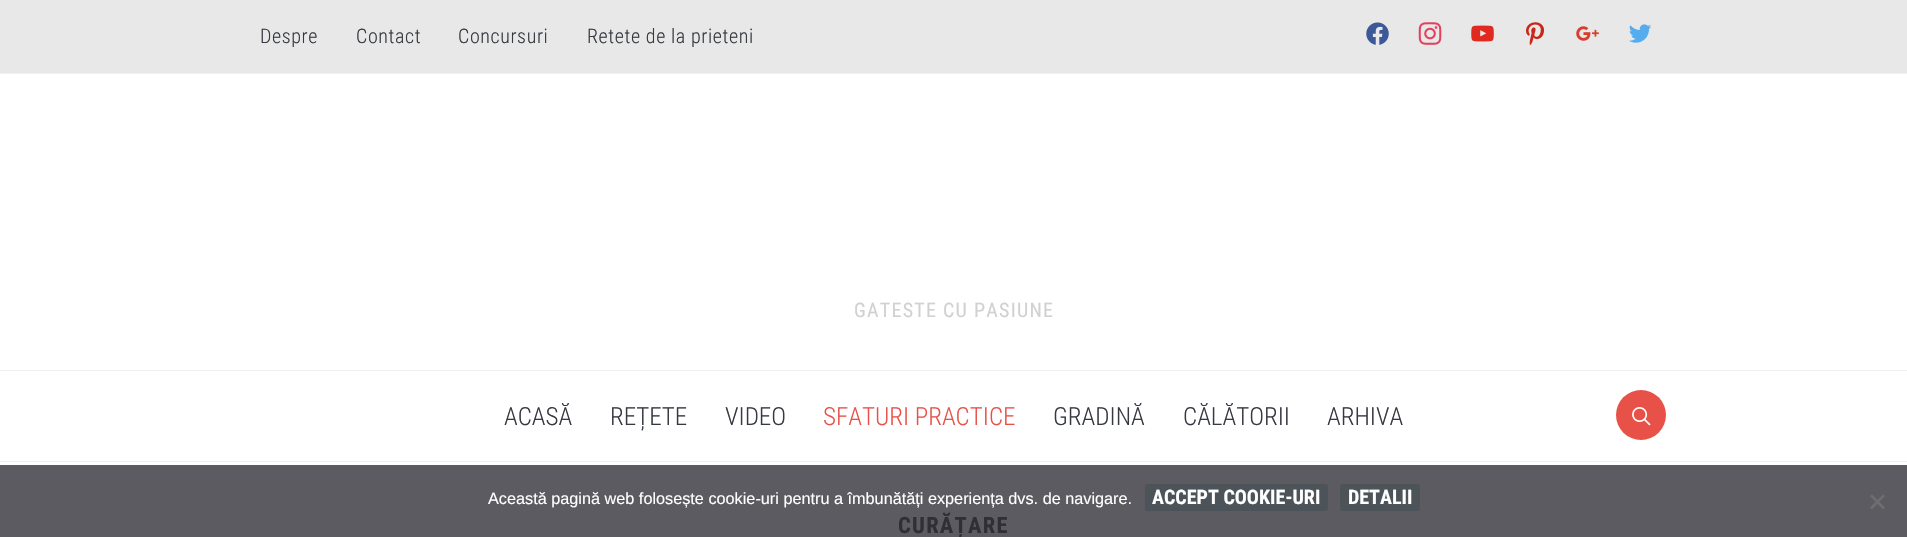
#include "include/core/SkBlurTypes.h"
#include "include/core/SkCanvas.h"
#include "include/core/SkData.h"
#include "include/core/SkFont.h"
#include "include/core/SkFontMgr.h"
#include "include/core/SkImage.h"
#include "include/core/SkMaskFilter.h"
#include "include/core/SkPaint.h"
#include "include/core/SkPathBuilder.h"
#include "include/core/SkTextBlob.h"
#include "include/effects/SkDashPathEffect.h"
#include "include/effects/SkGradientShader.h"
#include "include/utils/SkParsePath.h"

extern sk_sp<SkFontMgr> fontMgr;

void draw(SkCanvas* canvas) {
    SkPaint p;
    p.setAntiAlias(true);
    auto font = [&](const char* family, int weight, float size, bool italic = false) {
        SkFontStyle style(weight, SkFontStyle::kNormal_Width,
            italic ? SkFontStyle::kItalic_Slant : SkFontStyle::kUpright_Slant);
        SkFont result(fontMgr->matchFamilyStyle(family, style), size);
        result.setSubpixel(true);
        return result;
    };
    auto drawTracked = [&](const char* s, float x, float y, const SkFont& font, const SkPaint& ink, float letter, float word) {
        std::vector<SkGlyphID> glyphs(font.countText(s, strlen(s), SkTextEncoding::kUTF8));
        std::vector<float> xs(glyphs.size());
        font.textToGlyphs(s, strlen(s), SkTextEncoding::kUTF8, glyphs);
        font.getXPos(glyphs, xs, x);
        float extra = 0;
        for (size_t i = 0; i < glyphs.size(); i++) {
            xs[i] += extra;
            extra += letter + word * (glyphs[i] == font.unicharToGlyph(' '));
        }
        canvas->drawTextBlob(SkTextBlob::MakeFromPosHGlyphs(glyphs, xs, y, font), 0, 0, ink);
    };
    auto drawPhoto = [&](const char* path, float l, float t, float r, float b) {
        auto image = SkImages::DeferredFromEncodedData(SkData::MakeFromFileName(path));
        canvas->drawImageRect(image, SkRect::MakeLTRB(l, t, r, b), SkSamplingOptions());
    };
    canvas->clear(0xFFFFFFFF);
    {
        const struct { float l, t, r, b; SkColor color; } items[] = {
            {0, 465, 1907, 537, 0xFF5B5B61},
            {0, 0, 1907, 73, 0xFFE8E8E8},
            {0, 73, 1907, 74, 0xFFF0F0F0},
        };
        for (auto [l, t, r, b, color] : items) {
            p.setColor(color);
            canvas->drawRect(SkRect::MakeLTRB(l, t, r, b), p);
        }
    }
    auto font1 = font("Roboto Condensed", 300, 20);
    p.setColor(0xFF363940);
    {
        const struct { const char* s; float x, y; } items[] = {
            {"Despre", 260, 43},
            {"Contact", 356, 43},
            {"Concursuri", 458, 43},
            {"Retete de la prieteni", 587, 43},
        };
        for (auto [s, x, y] : items) {
            drawTracked(s, x, y, font1, p, 0.6f, 0);
        }
    }
    drawPhoto("media/1.png", 1366, 22, 1389, 45);
    drawPhoto("media/2.png", 1418, 22, 1442, 45);
    drawPhoto("media/3.png", 1471, 25, 1494, 42);
    drawPhoto("media/4.png", 1526, 22, 1544, 45);
    drawPhoto("media/5.png", 1576, 26, 1599, 41);
    drawPhoto("media/6.png", 1629, 24, 1652, 43);
    auto font2 = font("Roboto Condensed", 400, 20);
    p.setColor(0xFFD1D1D1);
    drawTracked("GATESTE CU PASIUNE", 854, 317, font2, p, 1.25f, 0);
    p.setColor(0xFFF0F0F0);
    canvas->drawRect(SkRect::MakeLTRB(0, 370, 1907, 371), p);
    canvas->drawRect(SkRect::MakeLTRB(0, 461, 1907, 462), p);
    auto font3 = font("Roboto Condensed", 300, 25);
    p.setColor(0xFF363940);
    {
        const struct { const char* s; float x, y; } items[] = {
            {"ACASĂ", 504, 425},
            {"REȚETE", 610, 425},
            {"VIDEO", 725, 425},
        };
        for (auto [s, x, y] : items) {
            canvas->drawString(s, x, y, font3, p);
        }
    }
    p.setColor(0xFFE75148);
    canvas->drawString("SFATURI PRACTICE", 823, 425, font3, p);
    p.setColor(0xFF363940);
    {
        const struct { const char* s; float x, y; } items[] = {
            {"GRADINĂ", 1053, 425},
            {"CĂLĂTORII", 1183, 425},
            {"ARHIVA", 1327, 425},
        };
        for (auto [s, x, y] : items) {
            canvas->drawString(s, x, y, font3, p);
        }
    }
    p.setColor(0xFFE75148);
    canvas->drawCircle(1641, 415, 25, p);
    drawPhoto("media/7.png", 1632, 407, 1651, 426);
    auto font4 = font("Roboto Condensed", 700, 22.5f);
    p.setColor(0xFF2F2F35);
    drawTracked("CURĂȚARE", 898, 533, font4, p, 1.25f, 0);
    auto font5 = font("Liberation Sans", 400, 16.25f);
    p.setColor(0xFFFFFFFF);
    canvas->drawString("Această pagină web folosește cookie-uri pentru a îmbunătăți experiența dvs. de navigare.", 488, 504, font5, p);
    p.setColor(0xFF4C5459);
    canvas->drawRoundRect(SkRect::MakeLTRB(1145, 484, 1328, 511), 2.5f, 2.5f, p);
    auto font6 = font("Roboto Condensed", 700, 20);
    p.setColor(0xFFFFFFFF);
    canvas->drawString("ACCEPT COOKIE-URI", 1152, 504, font6, p);
    p.setColor(0xFF4C5459);
    canvas->drawRoundRect(SkRect::MakeLTRB(1340, 484, 1420, 511), 2.5f, 2.5f, p);
    p.setColor(0xFFFFFFFF);
    canvas->drawString("DETALII", 1348, 504, font6, p);
    p.setColor(0xFF6E6E71);
    canvas->drawPath(SkPathBuilder().moveTo(1883, 494.5f).lineTo(1885, 496).lineTo(1872, 509.5f).lineTo(1870, 507.5f).close().detach(), p);
    canvas->drawPath(SkPathBuilder().moveTo(1870, 496).lineTo(1872, 494.5f).lineTo(1885, 507.5f).lineTo(1883, 509.5f).close().detach(), p);
}
